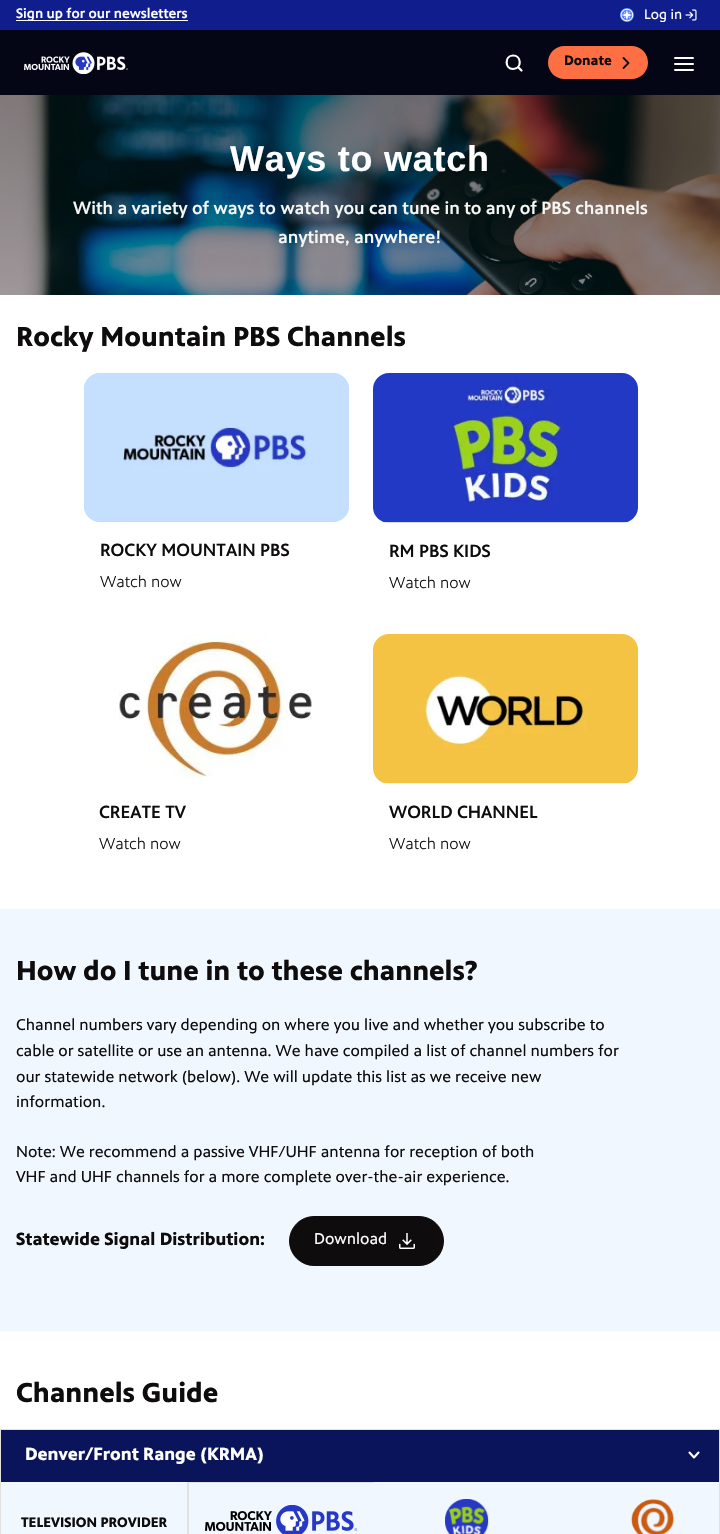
#include "include/core/SkBlurTypes.h"
#include "include/core/SkCanvas.h"
#include "include/core/SkData.h"
#include "include/core/SkFont.h"
#include "include/core/SkFontMgr.h"
#include "include/core/SkImage.h"
#include "include/core/SkMaskFilter.h"
#include "include/core/SkPaint.h"
#include "include/core/SkPathBuilder.h"
#include "include/core/SkTextBlob.h"
#include "include/effects/SkDashPathEffect.h"
#include "include/effects/SkGradientShader.h"
#include "include/utils/SkParsePath.h"

extern sk_sp<SkFontMgr> fontMgr;

void draw(SkCanvas* canvas) {
    SkPaint p;
    p.setAntiAlias(true);
    auto font = [&](const char* family, int weight, float size, bool italic = false) {
        SkFontStyle style(weight, SkFontStyle::kNormal_Width,
            italic ? SkFontStyle::kItalic_Slant : SkFontStyle::kUpright_Slant);
        SkFont result(fontMgr->matchFamilyStyle(family, style), size);
        result.setSubpixel(true);
        return result;
    };
    auto drawTracked = [&](const char* s, float x, float y, const SkFont& font, const SkPaint& ink, float letter, float word) {
        std::vector<SkGlyphID> glyphs(font.countText(s, strlen(s), SkTextEncoding::kUTF8));
        std::vector<float> xs(glyphs.size());
        font.textToGlyphs(s, strlen(s), SkTextEncoding::kUTF8, glyphs);
        font.getXPos(glyphs, xs, x);
        float extra = 0;
        for (size_t i = 0; i < glyphs.size(); i++) {
            xs[i] += extra;
            extra += letter + word * (glyphs[i] == font.unicharToGlyph(' '));
        }
        canvas->drawTextBlob(SkTextBlob::MakeFromPosHGlyphs(glyphs, xs, y, font), 0, 0, ink);
    };
    auto drawPhoto = [&](const char* path, float l, float t, float r, float b) {
        auto image = SkImages::DeferredFromEncodedData(SkData::MakeFromFileName(path));
        canvas->drawImageRect(image, SkRect::MakeLTRB(l, t, r, b), SkSamplingOptions());
    };
    canvas->clear(0xFFFFFFFF);
    p.setColor(0xFF0F1E8C);
    canvas->drawRect(SkRect::MakeLTRB(0, 0, 720, 30), p);
    p.setColor(0xFFFFFFFF);
    canvas->drawRect(SkRect::MakeLTRB(16, 20, 188, 21), p);
    auto font1 = font("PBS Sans", 500, 14);
    canvas->drawString("Sign up for our newsletters", 16, 18, font1, p);
    drawPhoto("media/1.png", 620, 8, 634, 22);
    auto font2 = font("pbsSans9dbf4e", 400, 14);
    canvas->drawString("Log in", 644, 19, font2, p);
    drawPhoto("media/2.png", 685, 9, 697, 21);
    p.setColor(0xFF040616);
    canvas->drawRect(SkRect::MakeLTRB(0, 30, 720, 95), p);
    drawPhoto("media/3.png", 24, 52, 128, 74);
    p.setStyle(SkPaint::kStroke_Style);
    p.setStrokeWidth(2.2f);
    p.setStrokeCap(SkPaint::kRound_Cap);
    p.setStrokeJoin(SkPaint::kRound_Join);
    p.setColor(0xFFFFFFFF);
    canvas->drawPath(SkPathBuilder().moveTo(513, 69).cubicTo(522, 69, 522, 55.5f, 513, 55.5f).cubicTo(504.5f, 55.5f, 504.5f, 69, 513, 69).moveTo(521.5f, 70.5f).lineTo(518, 67).detach(), p);
    p.setStyle(SkPaint::kFill_Style);
    p.setColor(0xFFFE7043);
    canvas->drawRoundRect(SkRect::MakeLTRB(548, 46, 648, 79), 16.5f, 16.5f, p);
    auto font3 = font("pbsSans9dbf4e", 700, 14);
    p.setColor(0xFF0E0C0D);
    canvas->drawString("Donate", 564, 65, font3, p);
    p.setStyle(SkPaint::kStroke_Style);
    p.setStrokeWidth(1.8f);
    canvas->drawPath(SkPathBuilder().moveTo(623.5f, 68).lineTo(628.5f, 63).lineTo(623.5f, 58).detach(), p);
    p.setStyle(SkPaint::kFill_Style);
    p.setColor(0xFFFFFFFF);
    canvas->drawRoundRect(SkRect::MakeLTRB(674, 63, 694, 65), 1, 1, p);
    canvas->drawRoundRect(SkRect::MakeLTRB(674, 57, 694, 59), 1, 1, p);
    canvas->drawRoundRect(SkRect::MakeLTRB(674, 69, 694, 71), 1, 1, p);
    drawPhoto("media/4.png", 0, 95, 720, 295);
    auto font4 = font("Liberation Sans", 700, 36);
    drawTracked("Ways to watch", 230, 171, font4, p, 0.75f, 0);
    auto font5 = font("PBS Sans", 500, 18);
    p.setColor(0xFFF7F7F4);
    canvas->drawString("With a variety of ways to watch you can tune in to any of PBS channels", 73, 214, font5, p);
    canvas->drawString("anytime, anywhere!", 278, 243, font5, p);
    auto font6 = font("pbsSans9dbf4e", 700, 28);
    p.setColor(0xFF0E0C0D);
    canvas->drawString("Rocky Mountain PBS Channels", 16, 346, font6, p);
    p.setColor(0xFFBFDBFE);
    canvas->drawRoundRect(SkRect::MakeLTRB(84, 373, 349, 522), 16, 16, p);
    drawPhoto("media/5.png", 84, 373, 349, 522);
    p.setColor(0xFF0E0C0D);
    canvas->drawString("ROCKY MOUNTAIN PBS", 100, 556, font5, p);
    auto font7 = font("PBS Sans", 300, 16);
    canvas->drawString("Watch now", 100, 587, font7, p);
    drawPhoto("media/6.png", 373, 373, 638, 523);
    canvas->drawString("RM PBS KIDS", 389, 557, font5, p);
    canvas->drawString("Watch now", 389, 588, font7, p);
    drawPhoto("media/7.png", 119, 634, 312, 777);
    canvas->drawString("CREATE TV", 99, 818, font5, p);
    canvas->drawString("Watch now", 99, 849, font7, p);
    drawPhoto("media/8.png", 373, 634, 638, 784);
    canvas->drawString("WORLD CHANNEL", 389, 818, font5, p);
    canvas->drawString("Watch now", 389, 849, font7, p);
    p.setColor(0xFFF0F7FF);
    canvas->drawRect(SkRect::MakeLTRB(0, 909, 720, 1331), p);
    p.setColor(0xFF0E0C0D);
    canvas->drawString("How do I tune in to these channels?", 16, 980, font6, p);
    auto font8 = font("pbsSans9dbf4e", 400, 16);
    {
        const struct { const char* s; float x, y; } items[] = {
            {"Channel numbers vary depending on where you live and whether you subscribe to", 16, 1030},
            {"cable or satellite or use an antenna. We have compiled a list of channel numbers for", 16, 1056},
            {"our statewide network (below). We will update this list as we receive new", 16, 1082},
            {"information.", 16, 1107},
            {"Note: We recommend a passive VHF/UHF antenna for reception of both", 16, 1157},
            {"VHF and UHF channels for a more complete over-the-air experience.", 16, 1182},
        };
        for (auto [s, x, y] : items) {
            canvas->drawString(s, x, y, font8, p);
        }
    }
    auto font9 = font("pbsSans9dbf4e", 700, 18);
    canvas->drawString("Statewide Signal Distribution:", 16, 1245, font9, p);
    canvas->drawRoundRect(SkRect::MakeLTRB(289.5f, 1216.5f, 443.5f, 1265.5f), 24.5f, 24.5f, p);
    p.setStyle(SkPaint::kStroke_Style);
    p.setStrokeWidth(1);
    p.setStrokeCap(SkPaint::kButt_Cap);
    p.setStrokeJoin(SkPaint::kMiter_Join);
    canvas->drawRoundRect(SkRect::MakeLTRB(289.5f, 1216.5f, 443.5f, 1265.5f), 24.5f, 24.5f, p);
    p.setStyle(SkPaint::kFill_Style);
    p.setColor(0xFFFFFFFF);
    canvas->drawString("Download", 314, 1244, font8, p);
    drawPhoto("media/9.png", 399, 1233, 415, 1249);
    p.setColor(0xFF0E0C0D);
    canvas->drawString("Channels Guide", 16, 1402, font6, p);
    p.setStyle(SkPaint::kStroke_Style);
    p.setColor(0xFFE0E0DE);
    canvas->drawRect(SkRect::MakeLTRB(0.5f, 1429.5f, 719.5f, 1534.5f), p);
    p.setStyle(SkPaint::kFill_Style);
    p.setColor(0xFF0A145A);
    canvas->drawRect(SkRect::MakeLTRB(1, 1430, 719, 1482), p);
    p.setColor(0xFFFFFFFF);
    canvas->drawString("Denver/Front Range (KRMA)", 25, 1460, font9, p);
    p.setColor(0xFFF0F7FF);
    canvas->drawRect(SkRect::MakeLTRB(189, 1483, 374, 1534), p);
    p.setStyle(SkPaint::kStroke_Style);
    p.setColor(0xFFE0E0DE);
    canvas->drawRect(SkRect::MakeLTRB(188.5f, 1482.5f, 375.5f, 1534.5f), p);
    drawPhoto("media/10.png", 205, 1505, 357, 1534);
    p.setStyle(SkPaint::kFill_Style);
    p.setColor(0xFFF0F7FF);
    canvas->drawRect(SkRect::MakeLTRB(374, 1482, 719, 1534), p);
    drawPhoto("media/11.png", 445, 1499, 489, 1534);
    p.setColor(0xFFE0E0DE);
    canvas->drawRect(SkRect::MakeLTRB(187, 1482, 188, 1534), p);
    p.setColor(0xFFF0F7FF);
    canvas->drawRect(SkRect::MakeLTRB(1, 1482, 187, 1534), p);
    p.setColor(0xFF0E0C0D);
    canvas->drawString("TELEVISION PROVIDER", 21, 1527, font3, p);
    drawPhoto("media/12.png", 631, 1499, 675, 1534);
    p.setStyle(SkPaint::kStroke_Style);
    p.setStrokeWidth(2.1f);
    p.setStrokeCap(SkPaint::kRound_Cap);
    p.setStrokeJoin(SkPaint::kRound_Join);
    p.setColor(0xFFFFFFFF);
    canvas->drawPath(SkPathBuilder().moveTo(689.5f, 1452.5f).lineTo(694, 1457.5f).lineTo(698.5f, 1452.5f).detach(), p);
}
